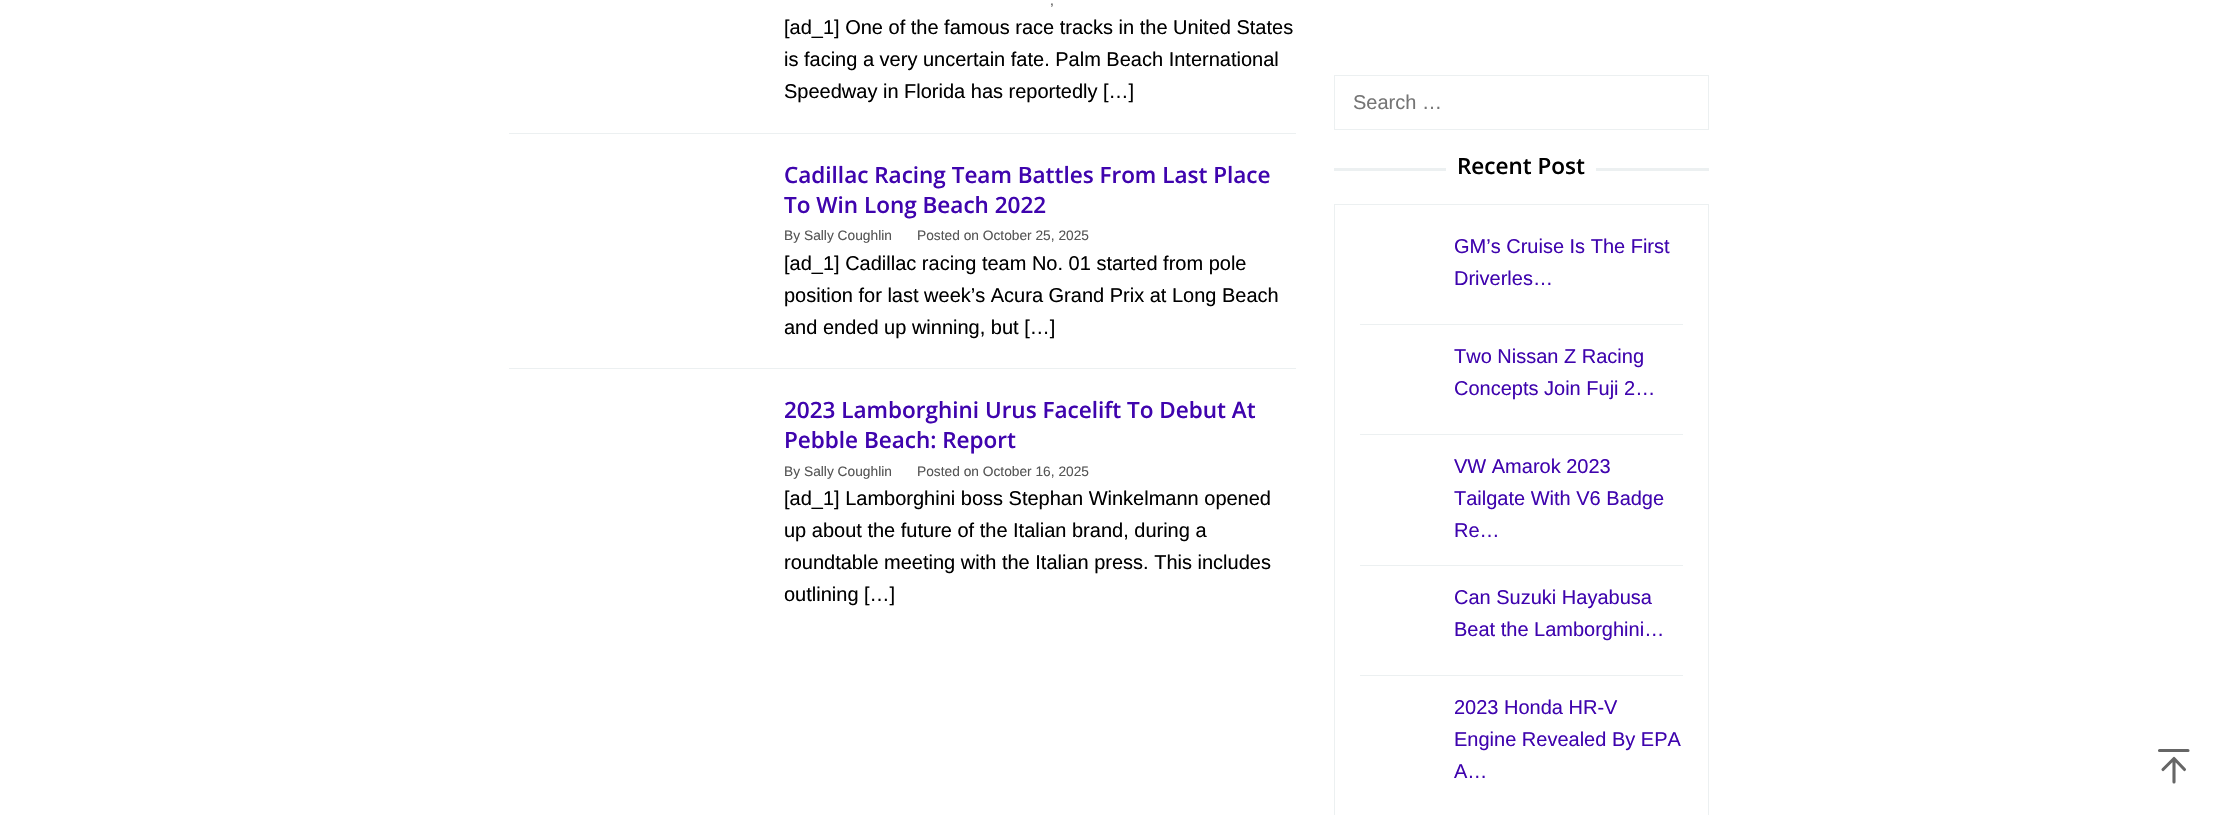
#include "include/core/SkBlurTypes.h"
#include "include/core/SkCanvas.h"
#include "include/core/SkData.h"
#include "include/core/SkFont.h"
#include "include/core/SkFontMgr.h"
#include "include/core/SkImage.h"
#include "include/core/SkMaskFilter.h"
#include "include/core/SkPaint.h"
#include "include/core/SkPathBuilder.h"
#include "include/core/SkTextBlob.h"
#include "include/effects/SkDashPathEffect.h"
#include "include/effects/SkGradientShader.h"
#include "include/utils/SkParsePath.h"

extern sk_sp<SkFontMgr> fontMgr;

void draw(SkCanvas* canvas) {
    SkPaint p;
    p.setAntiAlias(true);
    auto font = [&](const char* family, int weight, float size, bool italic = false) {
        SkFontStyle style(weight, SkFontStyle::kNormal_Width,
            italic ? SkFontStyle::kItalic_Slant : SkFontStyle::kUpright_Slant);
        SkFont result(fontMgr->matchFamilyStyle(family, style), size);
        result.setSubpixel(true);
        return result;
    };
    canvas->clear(0xFFFFFFFF);
    p.setColor(0xFFECF0F1);
    canvas->drawRect(SkRect::MakeLTRB(509, 133, 1296, 134), p);
    auto font1 = font("Liberation Sans", 400, 13.75f);
    p.setColor(0xFF555555);
    canvas->drawString(",", 1050, 5, font1, p);
    auto font2 = font("Liberation Sans", 400, 20);
    p.setColor(0xFF000000);
    {
        const struct { const char* s; float x, y; } items[] = {
            {"[ad_1] One of the famous race tracks in the United States", 784, 34},
            {"is facing a very uncertain fate. Palm Beach International", 784, 66},
            {"Speedway in Florida has reportedly […]", 784, 98},
        };
        for (auto [s, x, y] : items) {
            canvas->drawString(s, x, y, font2, p);
        }
    }
    p.setColor(0xFFECF0F1);
    canvas->drawRect(SkRect::MakeLTRB(509, 368, 1296, 369), p);
    auto font3 = font("Open Sans", 600, 22.5f);
    p.setColor(0xFF3F04AE);
    canvas->drawString("Cadillac Racing Team Battles From Last Place", 784, 183, font3, p);
    canvas->drawString("To Win Long Beach 2022", 784, 213, font3, p);
    p.setColor(0xFF555555);
    {
        const struct { const char* s; float x, y; } items[] = {
            {"By", 784, 240},
            {"Sally Coughlin", 804, 240},
            {"Posted on October 25, 2025", 917, 240},
        };
        for (auto [s, x, y] : items) {
            canvas->drawString(s, x, y, font1, p);
        }
    }
    p.setColor(0xFF000000);
    {
        const struct { const char* s; float x, y; } items[] = {
            {"[ad_1] Cadillac racing team No. 01 started from pole", 784, 270},
            {"position for last week’s Acura Grand Prix at Long Beach", 784, 302},
            {"and ended up winning, but […]", 784, 334},
        };
        for (auto [s, x, y] : items) {
            canvas->drawString(s, x, y, font2, p);
        }
    }
    p.setColor(0xFF3F04AE);
    canvas->drawString("2023 Lamborghini Urus Facelift To Debut At", 784, 418, font3, p);
    canvas->drawString("Pebble Beach: Report", 784, 448, font3, p);
    p.setColor(0xFF555555);
    {
        const struct { const char* s; float x, y; } items[] = {
            {"By", 784, 476},
            {"Sally Coughlin", 804, 476},
            {"Posted on October 16, 2025", 917, 476},
        };
        for (auto [s, x, y] : items) {
            canvas->drawString(s, x, y, font1, p);
        }
    }
    p.setColor(0xFF000000);
    {
        const struct { const char* s; float x, y; } items[] = {
            {"[ad_1] Lamborghini boss Stephan Winkelmann opened", 784, 505},
            {"up about the future of the Italian brand, during a", 784, 537},
            {"roundtable meeting with the Italian press. This includes", 784, 569},
            {"outlining […]", 784, 601},
        };
        for (auto [s, x, y] : items) {
            canvas->drawString(s, x, y, font2, p);
        }
    }
    p.setStyle(SkPaint::kStroke_Style);
    p.setStrokeWidth(1);
    p.setColor(0xFFECF0F1);
    canvas->drawRect(SkRect::MakeLTRB(1334.5f, 75.5f, 1708.5f, 129.5f), p);
    p.setStyle(SkPaint::kFill_Style);
    p.setColor(0xFF757575);
    canvas->drawString("Search …", 1353, 109, font2, p);
    p.setColor(0xFFECF0F1);
    canvas->drawRect(SkRect::MakeLTRB(1334, 168, 1446, 171), p);
    p.setColor(0xFF000000);
    canvas->drawString("Recent Post", 1457, 174, font3, p);
    p.setColor(0xFFECF0F1);
    canvas->drawRect(SkRect::MakeLTRB(1596, 168, 1709, 171), p);
    p.setStyle(SkPaint::kStroke_Style);
    canvas->drawRect(SkRect::MakeLTRB(1334.5f, 204.5f, 1708.5f, 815.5f), p);
    p.setStyle(SkPaint::kFill_Style);
    canvas->drawRect(SkRect::MakeLTRB(1360, 324, 1683, 325), p);
    p.setColor(0xFF3F04AE);
    canvas->drawString("GM’s Cruise Is The First", 1454, 253, font2, p);
    canvas->drawString("Driverles…", 1454, 285, font2, p);
    p.setColor(0xFFECF0F1);
    canvas->drawRect(SkRect::MakeLTRB(1360, 434, 1683, 435), p);
    p.setColor(0xFF3F04AE);
    canvas->drawString("Two Nissan Z Racing", 1454, 363, font2, p);
    canvas->drawString("Concepts Join Fuji 2…", 1454, 395, font2, p);
    p.setColor(0xFFECF0F1);
    canvas->drawRect(SkRect::MakeLTRB(1360, 565, 1683, 566), p);
    p.setColor(0xFF3F04AE);
    {
        const struct { const char* s; float x, y; } items[] = {
            {"VW Amarok 2023", 1454, 473},
            {"Tailgate With V6 Badge", 1454, 505},
            {"Re…", 1454, 537},
        };
        for (auto [s, x, y] : items) {
            canvas->drawString(s, x, y, font2, p);
        }
    }
    p.setColor(0xFFECF0F1);
    canvas->drawRect(SkRect::MakeLTRB(1360, 675, 1683, 676), p);
    p.setColor(0xFF3F04AE);
    {
        const struct { const char* s; float x, y; } items[] = {
            {"Can Suzuki Hayabusa", 1454, 604},
            {"Beat the Lamborghini…", 1454, 636},
            {"2023 Honda HR-V", 1454, 714},
            {"Engine Revealed By EPA", 1454, 746},
            {"A…", 1454, 778},
        };
        for (auto [s, x, y] : items) {
            canvas->drawString(s, x, y, font2, p);
        }
    }
    p.setStyle(SkPaint::kStroke_Style);
    p.setStrokeWidth(3.1f);
    p.setStrokeCap(SkPaint::kRound_Cap);
    p.setStrokeJoin(SkPaint::kRound_Join);
    p.setColor(0xFF666666);
    canvas->drawPath(SkPathBuilder().moveTo(2174, 782).lineTo(2174, 758.5f).moveTo(2163, 769.5f).lineTo(2174, 758.5f).lineTo(2184.5f, 769.5f).moveTo(2159.5f, 750.5f).lineTo(2188, 750.5f).detach(), p);
}
